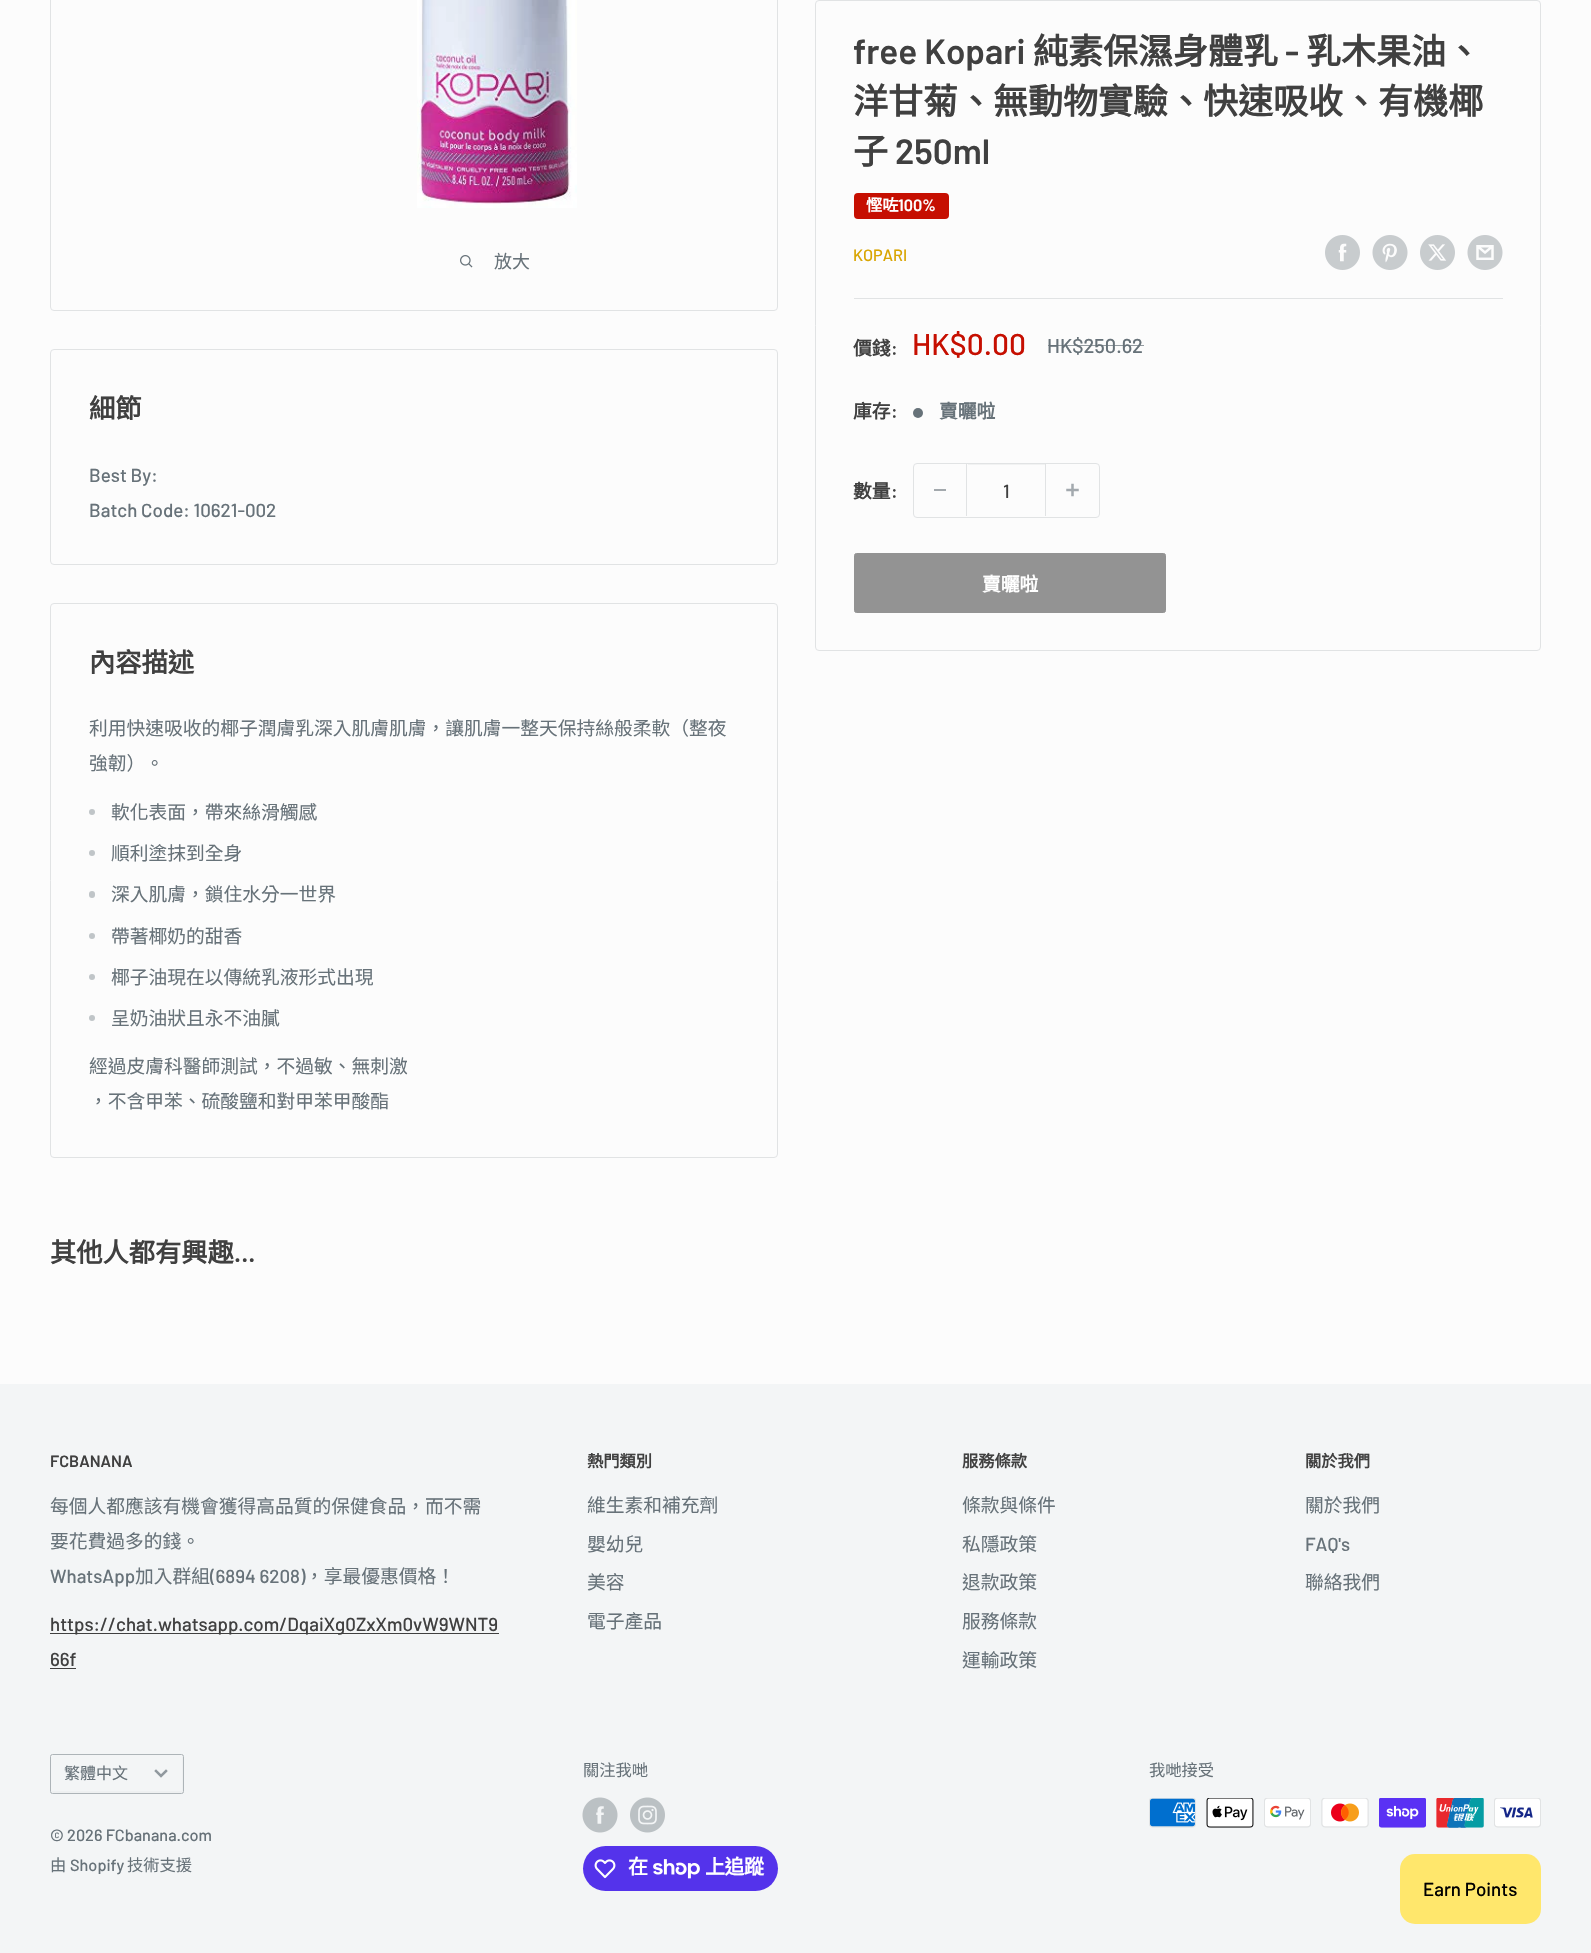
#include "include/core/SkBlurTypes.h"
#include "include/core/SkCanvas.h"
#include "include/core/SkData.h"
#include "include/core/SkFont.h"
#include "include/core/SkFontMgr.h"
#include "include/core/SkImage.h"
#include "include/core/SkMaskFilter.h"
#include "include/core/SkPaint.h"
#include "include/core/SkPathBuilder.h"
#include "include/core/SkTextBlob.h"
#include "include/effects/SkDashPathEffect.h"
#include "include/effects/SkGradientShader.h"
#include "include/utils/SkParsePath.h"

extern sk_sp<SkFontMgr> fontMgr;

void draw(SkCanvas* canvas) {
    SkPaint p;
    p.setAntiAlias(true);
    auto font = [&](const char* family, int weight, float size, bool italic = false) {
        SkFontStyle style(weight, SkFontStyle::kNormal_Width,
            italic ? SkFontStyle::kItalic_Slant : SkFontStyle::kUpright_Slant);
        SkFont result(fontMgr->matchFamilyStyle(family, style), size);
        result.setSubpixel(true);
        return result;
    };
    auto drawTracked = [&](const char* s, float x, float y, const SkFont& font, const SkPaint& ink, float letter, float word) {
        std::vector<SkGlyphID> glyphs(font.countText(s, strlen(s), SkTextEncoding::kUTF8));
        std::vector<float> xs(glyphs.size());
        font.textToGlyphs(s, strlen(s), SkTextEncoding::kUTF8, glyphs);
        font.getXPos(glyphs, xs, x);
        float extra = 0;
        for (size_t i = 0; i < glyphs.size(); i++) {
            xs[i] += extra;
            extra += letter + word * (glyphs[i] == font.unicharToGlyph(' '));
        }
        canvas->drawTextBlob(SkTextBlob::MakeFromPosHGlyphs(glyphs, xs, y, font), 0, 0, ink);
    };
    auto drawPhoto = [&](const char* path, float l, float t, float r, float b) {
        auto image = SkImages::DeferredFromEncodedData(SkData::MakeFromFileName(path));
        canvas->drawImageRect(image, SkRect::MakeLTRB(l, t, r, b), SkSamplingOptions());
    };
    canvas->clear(0xFFFCFCFC);
    p.setStyle(SkPaint::kStroke_Style);
    p.setStrokeWidth(1);
    p.setColor(0xFFE1E3E4);
    canvas->drawRoundRect(SkRect::MakeLTRB(50.5f, -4.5f, 777.5f, 310.5f), 3.5f, 3.5f, p);
    drawPhoto("media/1.png", 417, 0, 577, 208);
    drawPhoto("media/2.png", 460, 255, 473, 268);
    auto font1 = font("Noto Sans CJK TC", 400, 18);
    p.setStyle(SkPaint::kFill_Style);
    p.setColor(0xFF677279);
    canvas->drawString("放大", 494, 268, font1, p);
    p.setStyle(SkPaint::kStroke_Style);
    p.setColor(0xFFE1E3E4);
    canvas->drawRoundRect(SkRect::MakeLTRB(815.5f, 0.5f, 1540.5f, 650.5f), 3.5f, 3.5f, p);
    auto font2 = font("Barlow", 600, 35);
    p.setStyle(SkPaint::kFill_Style);
    p.setColor(0xFF404040);
    canvas->drawString("free Kopari", 853, 64, font2, p);
    auto font3 = font("Noto Sans CJK TC", 700, 35);
    canvas->drawString("純素保濕身體乳", 1033, 64, font3, p);
    canvas->drawString("-", 1285, 64, font2, p);
    {
        const struct { const char* s; float x, y; } items[] = {
            {"乳木果油、", 1306, 64},
            {"洋甘菊、無動物實驗、快速吸收、有機椰", 853, 114},
            {"子", 853, 164},
        };
        for (auto [s, x, y] : items) {
            canvas->drawString(s, x, y, font3, p);
        }
    }
    canvas->drawString("250ml", 895, 164, font2, p);
    p.setColor(0xFFC60F01);
    canvas->drawRoundRect(SkRect::MakeLTRB(854, 193, 949, 219), 4, 4, p);
    auto font4 = font("Noto Sans CJK TC", 700, 16.25f);
    p.setColor(0xFFFFFFFF);
    canvas->drawString("慳咗", 866, 211, font4, p);
    auto font5 = font("Barlow", 600, 16.25f);
    canvas->drawString("100%", 898, 211, font5, p);
    auto font6 = font("Barlow", 500, 16.25f);
    p.setColor(0xFFD9A501);
    canvas->drawString("KOPARI", 853, 261, font6, p);
    drawPhoto("media/3.png", 1325, 235, 1360, 270);
    drawPhoto("media/4.png", 1372, 235, 1408, 270);
    drawPhoto("media/5.png", 1420, 235, 1455, 270);
    drawPhoto("media/6.png", 1467, 235, 1503, 270);
    p.setColor(0xFFE1E3E4);
    canvas->drawRect(SkRect::MakeLTRB(854, 298, 1503, 299), p);
    auto font7 = font("Noto Sans CJK TC", 700, 18.75f);
    p.setColor(0xFF404040);
    canvas->drawString("價錢", 853, 355, font7, p);
    auto font8 = font("Barlow", 600, 18.75f);
    canvas->drawString(":", 891, 355, font8, p);
    auto font9 = font("Barlow", 500, 30);
    p.setColor(0xFFC60F01);
    canvas->drawString("HK$0.00", 912, 355, font9, p);
    auto font10 = font("Barlow", 500, 20);
    p.setColor(0xFF677279);
    canvas->drawString("HK$250.62", 1047, 353, font10, p);
    p.setColor(0xB3677279);
    canvas->drawRect(SkRect::MakeLTRB(1048, 345, 1144, 346), p);
    p.setColor(0xFF404040);
    canvas->drawString("庫存", 853, 418, font7, p);
    canvas->drawString(":", 891, 418, font8, p);
    p.setColor(0xFF677279);
    canvas->drawCircle(918, 413, 5, p);
    canvas->drawString("賣曬啦", 939, 418, font7, p);
    p.setColor(0xFF404040);
    canvas->drawString("數量", 853, 498, font7, p);
    canvas->drawString(":", 891, 498, font8, p);
    p.setStyle(SkPaint::kStroke_Style);
    p.setColor(0xFFE1E3E4);
    canvas->drawRoundRect(SkRect::MakeLTRB(913.5f, 463.5f, 1099.5f, 517.5f), 3.5f, 3.5f, p);
    p.setStyle(SkPaint::kFill_Style);
    {
        const struct { float l, t, r, b; SkColor color; } items[] = {
            {934, 489, 946, 491, 0xFFA3A9AD},
            {968, 464, 1045, 465, 0xFFF1F2F2},
            {1045, 464, 1046, 516, 0xFFE1E3E4},
            {966, 464, 967, 516, 0xFFE1E3E4},
        };
        for (auto [l, t, r, b, color] : items) {
            p.setColor(color);
            canvas->drawRect(SkRect::MakeLTRB(l, t, r, b), p);
        }
    }
    auto font11 = font("Barlow", 500, 18.75f);
    p.setColor(0xFF404040);
    canvas->drawString("1", 1003, 498, font11, p);
    drawPhoto("media/7.png", 1066, 483, 1079, 497);
    p.setColor(0xFF939393);
    canvas->drawRoundRect(SkRect::MakeLTRB(854.5f, 553.5f, 1165.5f, 612.5f), 2, 2, p);
    p.setStyle(SkPaint::kStroke_Style);
    canvas->drawRoundRect(SkRect::MakeLTRB(854.5f, 553.5f, 1165.5f, 612.5f), 2, 2, p);
    p.setStyle(SkPaint::kFill_Style);
    p.setColor(0xFFFFFFFF);
    canvas->drawString("賣曬啦", 982, 591, font7, p);
    p.setStyle(SkPaint::kStroke_Style);
    p.setColor(0xFFE1E3E4);
    canvas->drawRoundRect(SkRect::MakeLTRB(50.5f, 349.5f, 777.5f, 564.5f), 3.5f, 3.5f, p);
    auto font12 = font("Noto Sans CJK TC", 700, 26.25f);
    p.setStyle(SkPaint::kFill_Style);
    p.setColor(0xFF404040);
    canvas->drawString("細節", 89, 418, font12, p);
    p.setColor(0xFF677279);
    canvas->drawString("Best By:", 89, 482, font11, p);
    canvas->drawString("Batch Code: 10621-002", 89, 517, font11, p);
    p.setStyle(SkPaint::kStroke_Style);
    p.setColor(0xFFE1E3E4);
    canvas->drawRoundRect(SkRect::MakeLTRB(50.5f, 603.5f, 777.5f, 1157.5f), 3.5f, 3.5f, p);
    p.setStyle(SkPaint::kFill_Style);
    p.setColor(0xFF404040);
    canvas->drawString("內容描述", 89, 672, font12, p);
    auto font13 = font("Noto Sans CJK TC", 400, 18.75f);
    p.setColor(0xFF677279);
    canvas->drawString("利用快速吸收的椰子潤膚乳深入肌膚肌膚，讓肌膚一整天保持絲般柔軟（整夜", 89, 735, font13, p);
    canvas->drawString("強韌）。", 89, 770, font13, p);
    p.setColor(0xFFC0C5C8);
    canvas->drawCircle(92, 812, 3, p);
    p.setColor(0xFF677279);
    canvas->drawString("軟化表面，帶來絲滑觸感", 111, 819, font13, p);
    p.setColor(0xFFC0C5C8);
    canvas->drawCircle(92, 853, 3, p);
    p.setColor(0xFF677279);
    canvas->drawString("順利塗抹到全身", 111, 860, font13, p);
    p.setColor(0xFFC0C5C8);
    canvas->drawRoundRect(SkRect::MakeLTRB(89, 891, 95, 898), 3, 3, p);
    p.setColor(0xFF677279);
    canvas->drawString("深入肌膚，鎖住水分一世界", 111, 901, font13, p);
    p.setColor(0xFFC0C5C8);
    canvas->drawCircle(92, 936, 3, p);
    p.setColor(0xFF677279);
    canvas->drawString("帶著椰奶的甜香", 111, 943, font13, p);
    p.setColor(0xFFC0C5C8);
    canvas->drawCircle(92, 977, 3, p);
    p.setColor(0xFF677279);
    canvas->drawString("椰子油現在以傳統乳液形式出現", 111, 984, font13, p);
    p.setColor(0xFFC0C5C8);
    canvas->drawCircle(92, 1018, 3, p);
    p.setColor(0xFF677279);
    {
        const struct { const char* s; float x, y; } items[] = {
            {"呈奶油狀且永不油膩", 111, 1025},
            {"經過皮膚科醫師測試，不過敏、無刺激", 89, 1073},
            {"，不含甲苯、硫酸鹽和對甲苯甲酸酯", 89, 1108},
        };
        for (auto [s, x, y] : items) {
            canvas->drawString(s, x, y, font13, p);
        }
    }
    p.setColor(0xFF404040);
    canvas->drawString("其他人都有興趣", 50, 1262, font12, p);
    auto font14 = font("Barlow", 600, 26.25f);
    canvas->drawString("...", 234, 1262, font14, p);
    p.setColor(0xFFF3F5F6);
    canvas->drawRect(SkRect::MakeLTRB(0, 1384, 1591, 1953), p);
    p.setColor(0xFF404040);
    canvas->drawString("FCBANANA", 50, 1467, font5, p);
    p.setColor(0xFF677279);
    canvas->drawString("每個人都應該有機會獲得高品質的保健食品，而不需", 50, 1513, font13, p);
    canvas->drawString("要花費過多的錢。", 50, 1548, font13, p);
    canvas->drawString("WhatsApp", 50, 1583, font11, p);
    canvas->drawString("加入群組", 135, 1583, font13, p);
    canvas->drawString("(6894 6208)", 210, 1583, font11, p);
    canvas->drawString("，享最優惠價格！", 305, 1583, font13, p);
    p.setColor(0xFF404040);
    canvas->drawRect(SkRect::MakeLTRB(50, 1633, 499, 1634), p);
    canvas->drawString("https://chat.whatsapp.com/DqaiXg0ZxXm0vW9WNT9", 50, 1631, font11, p);
    canvas->drawString("66f", 50, 1666, font11, p);
    canvas->drawRect(SkRect::MakeLTRB(50, 1668, 76, 1669), p);
    canvas->drawString("熱門類別", 587, 1467, font4, p);
    p.setColor(0xFF677279);
    {
        const struct { const char* s; float x, y; } items[] = {
            {"維生素和補充劑", 587, 1512},
            {"嬰幼兒", 587, 1551},
            {"美容", 587, 1589},
            {"電子產品", 587, 1628},
        };
        for (auto [s, x, y] : items) {
            canvas->drawString(s, x, y, font13, p);
        }
    }
    p.setColor(0xFF404040);
    canvas->drawString("服務條款", 962, 1467, font4, p);
    p.setColor(0xFF677279);
    {
        const struct { const char* s; float x, y; } items[] = {
            {"條款與條件", 962, 1512},
            {"私隱政策", 962, 1551},
            {"退款政策", 962, 1589},
            {"服務條款", 962, 1628},
            {"運輸政策", 962, 1667},
        };
        for (auto [s, x, y] : items) {
            canvas->drawString(s, x, y, font13, p);
        }
    }
    p.setColor(0xFF404040);
    canvas->drawString("關於我們", 1305, 1467, font4, p);
    p.setColor(0xFF677279);
    canvas->drawString("關於我們", 1305, 1512, font13, p);
    canvas->drawString("FAQ's", 1305, 1551, font11, p);
    canvas->drawString("聯絡我們", 1305, 1589, font13, p);
    p.setColor(0xFFEEF0F1);
    canvas->drawPath(SkPathBuilder().moveTo(51, 1790).lineTo(51, 1792).cubicTo(51, 1793, 51, 1793, 52, 1793).lineTo(182, 1793).cubicTo(183, 1793, 183, 1793, 183, 1792).lineTo(183, 1756).cubicTo(183, 1755, 183, 1755, 182, 1755).lineTo(182, 1790).cubicTo(182, 1791, 182, 1791, 181, 1791).lineTo(52, 1791).cubicTo(52, 1791, 51, 1791, 51, 1790).close().detach(), p);
    p.setStyle(SkPaint::kStroke_Style);
    p.setColor(0xFFADB4B8);
    canvas->drawRoundRect(SkRect::MakeLTRB(50.5f, 1754.5f, 183.5f, 1793.5f), 2, 2, p);
    auto font15 = font("Noto Sans CJK TC", 400, 16);
    p.setStyle(SkPaint::kFill_Style);
    p.setColor(0xFF677279);
    canvas->drawString("繁體中文", 64, 1779, font15, p);
    p.setStyle(SkPaint::kStroke_Style);
    p.setStrokeWidth(2.5f);
    p.setStrokeCap(SkPaint::kSquare_Cap);
    p.setColor(0xFF91999F);
    canvas->drawPath(SkPathBuilder().moveTo(166, 1771).lineTo(161, 1776).lineTo(156, 1771).detach(), p);
    p.setStyle(SkPaint::kFill_Style);
    p.setColor(0xFF677279);
    canvas->drawString("© 2026 FCbanana.com", 50, 1841, font6, p);
    auto font16 = font("Noto Sans CJK TC", 400, 16.25f);
    canvas->drawString("由", 50, 1871, font16, p);
    canvas->drawString("Shopify", 70, 1871, font6, p);
    canvas->drawString("技術支援", 127, 1871, font16, p);
    canvas->drawString("關注我哋", 583, 1776, font16, p);
    drawPhoto("media/8.png", 582, 1797, 618, 1833);
    drawPhoto("media/9.png", 630, 1797, 665, 1833);
    p.setColor(0xFF5433EB);
    canvas->drawRoundRect(SkRect::MakeLTRB(583, 1846, 778, 1891), 22.5f, 22.5f, p);
    drawPhoto("media/10.png", 594, 1859, 616, 1879);
    auto font17 = font("Noto Sans CJK TC", 700, 20);
    p.setColor(0xFFFFFFFF);
    drawTracked("在", 628, 1874, font17, p, -0.5f, 0);
    drawPhoto("media/11.png", 653, 1859, 700, 1879);
    drawTracked("上追蹤", 705, 1874, font17, p, -0.5f, 0);
    p.setColor(0xFF677279);
    canvas->drawString("我哋接受", 1149, 1776, font16, p);
    drawPhoto("media/12.png", 1149, 1798, 1196, 1828);
    drawPhoto("media/13.png", 1206, 1798, 1254, 1828);
    drawPhoto("media/14.png", 1264, 1798, 1311, 1828);
    drawPhoto("media/15.png", 1321, 1798, 1369, 1828);
    drawPhoto("media/16.png", 1379, 1798, 1426, 1828);
    drawPhoto("media/17.png", 1436, 1798, 1484, 1828);
    drawPhoto("media/18.png", 1494, 1798, 1541, 1828);
    p.setColor(0xFFFFE76C);
    canvas->drawRoundRect(SkRect::MakeLTRB(1400, 1854, 1541, 1924), 15, 15, p);
    p.setColor(0xFF000000);
    canvas->drawString("Earn Points", 1423, 1896, font11, p);
}
